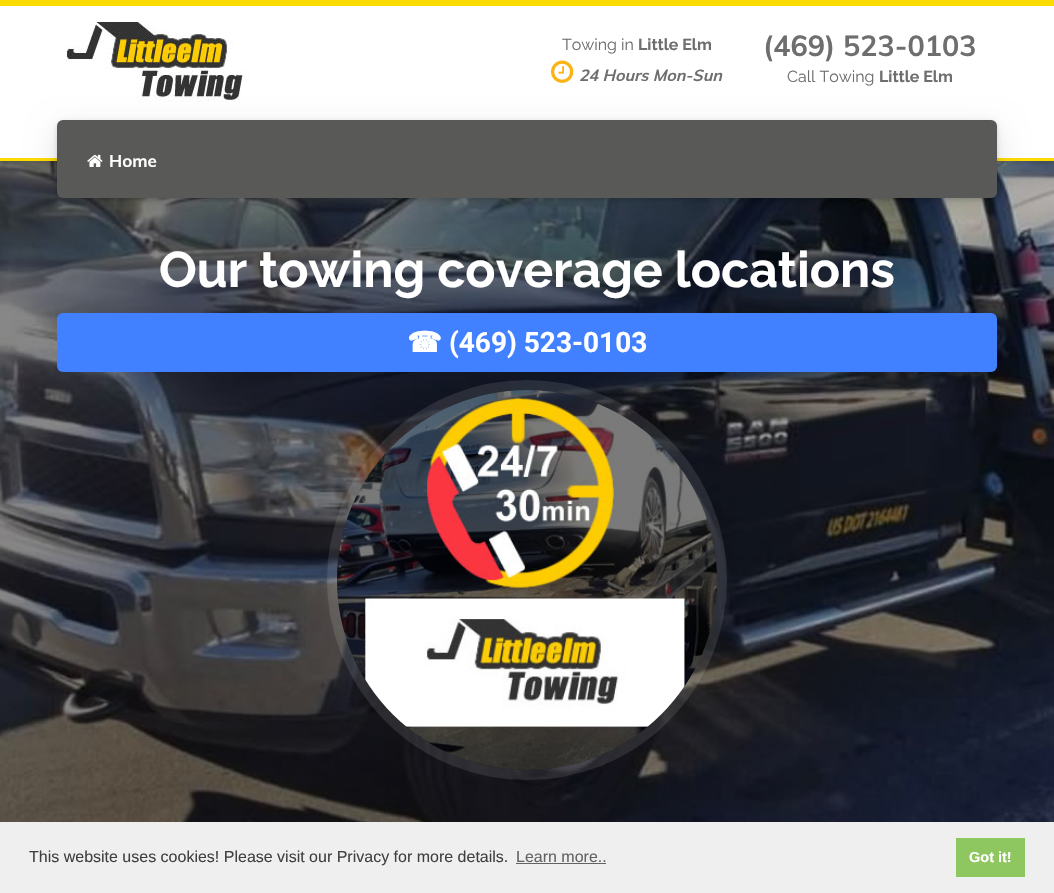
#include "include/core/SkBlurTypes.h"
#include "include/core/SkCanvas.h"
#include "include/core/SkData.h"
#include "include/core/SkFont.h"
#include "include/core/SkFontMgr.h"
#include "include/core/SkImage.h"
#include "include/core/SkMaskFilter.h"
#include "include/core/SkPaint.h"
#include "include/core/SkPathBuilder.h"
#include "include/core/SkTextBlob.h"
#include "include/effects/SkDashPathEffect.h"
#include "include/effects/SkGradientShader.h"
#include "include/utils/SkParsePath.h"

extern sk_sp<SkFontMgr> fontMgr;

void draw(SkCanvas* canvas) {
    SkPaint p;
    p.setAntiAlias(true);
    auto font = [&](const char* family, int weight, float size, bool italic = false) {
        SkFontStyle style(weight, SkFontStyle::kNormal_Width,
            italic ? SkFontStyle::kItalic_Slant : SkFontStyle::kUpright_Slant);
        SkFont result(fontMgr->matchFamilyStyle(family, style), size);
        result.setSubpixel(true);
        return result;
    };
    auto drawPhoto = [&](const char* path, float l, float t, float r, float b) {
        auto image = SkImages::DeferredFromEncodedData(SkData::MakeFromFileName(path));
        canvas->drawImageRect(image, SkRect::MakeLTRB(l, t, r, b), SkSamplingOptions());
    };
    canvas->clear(0xFFFFFFFF);
    drawPhoto("media/1.png", 0, 161, 1054, 822);
    p.setColor(0x1F000000);
    p.setMaskFilter(SkMaskFilter::MakeBlur(kNormal_SkBlurStyle, 15));
    canvas->drawRect(SkRect::MakeLTRB(0, 10, 1054, 171), p);
    p.setMaskFilter(nullptr);
    p.setColor(0x29000000);
    p.setMaskFilter(SkMaskFilter::MakeBlur(kNormal_SkBlurStyle, 2.5f));
    canvas->drawRect(SkRect::MakeLTRB(0, 2, 1054, 163), p);
    p.setMaskFilter(nullptr);
    {
        const struct { float l, t, r, b; SkColor color; } items[] = {
            {0, 6, 1054, 158, 0xFFFFFFFF},
            {0, 0, 1054, 6, 0xFFFEDB00},
            {0, 158, 1054, 161, 0xFFFEDB00},
        };
        for (auto [l, t, r, b, color] : items) {
            p.setColor(color);
            canvas->drawRect(SkRect::MakeLTRB(l, t, r, b), p);
        }
    }
    drawPhoto("media/2.png", 66, 22, 249, 102);
    auto font1 = font("Raleway", 400, 16);
    p.setColor(0xFF6E6E6E);
    canvas->drawString("Towing in", 562, 50, font1, p);
    auto font2 = font("Raleway", 700, 16);
    canvas->drawString("Little Elm", 638, 50, font2, p);
    drawPhoto("media/3.png", 551, 60, 574, 83);
    auto font3 = font("Muli", 700, 16, true);
    canvas->drawString("24 Hours Mon-Sun", 579, 81, font3, p);
    auto font4 = font("Muli", 700, 28.75f);
    canvas->drawString("(469) 523-0103", 763, 56, font4, p);
    p.setColor(0x1F000000);
    p.setMaskFilter(SkMaskFilter::MakeBlur(kNormal_SkBlurStyle, 15));
    canvas->drawRoundRect(SkRect::MakeLTRB(57, 130, 997, 208), 6, 6, p);
    p.setMaskFilter(nullptr);
    p.setColor(0xFF6E6E6E);
    canvas->drawString("Call Towing", 787, 82, font1, p);
    canvas->drawString("Little Elm", 879, 82, font2, p);
    p.setColor(0x29000000);
    p.setMaskFilter(SkMaskFilter::MakeBlur(kNormal_SkBlurStyle, 2.5f));
    canvas->drawRoundRect(SkRect::MakeLTRB(57, 122, 997, 200), 6, 6, p);
    p.setMaskFilter(nullptr);
    p.setColor(0xFF595958);
    canvas->drawRoundRect(SkRect::MakeLTRB(57, 120, 997, 198), 6, 6, p);
    drawPhoto("media/4.png", 87, 154, 103, 167);
    auto font5 = font("Muli", 700, 17);
    p.setColor(0xFFFFFFFF);
    canvas->drawString("Home", 109, 167, font5, p);
    auto font6 = font("Raleway", 700, 50);
    canvas->drawString("Our towing coverage locations", 159, 287, font6, p);
    p.setColor(0xFF4180FF);
    canvas->drawRoundRect(SkRect::MakeLTRB(57, 313, 997, 372), 6, 6, p);
    auto font7 = font("DejaVu Sans", 700, 28);
    p.setColor(0xFFFFFFFF);
    canvas->drawString("☎", 407, 352, font7, p);
    auto font8 = font("Roboto", 700, 28);
    canvas->drawString("(469) 523-0103", 449, 352, font8, p);
    p.setStyle(SkPaint::kStroke_Style);
    p.setStrokeWidth(10);
    p.setColor(0x1AFFFFFF);
    canvas->drawCircle(527, 580, 195, p);
    drawPhoto("media/5.png", 337, 390, 717, 770);
    p.setStyle(SkPaint::kFill_Style);
    p.setColor(0xFFEFEFEF);
    canvas->drawRect(SkRect::MakeLTRB(0, 822, 1054, 893), p);
    auto font9 = font("Liberation Sans", 400, 16);
    p.setColor(0xFF404040);
    canvas->drawString("This website uses cookies! Please visit our Privacy for more details.", 29, 862, font9, p);
    p.setColor(0xFF636363);
    canvas->drawString("Learn more..", 516, 862, font9, p);
    canvas->drawRect(SkRect::MakeLTRB(516, 863, 606, 864), p);
    p.setColor(0xFF8EC760);
    canvas->drawRect(SkRect::MakeLTRB(956, 838, 1025, 877), p);
    auto font10 = font("Liberation Sans", 700, 14.5f);
    p.setColor(0xFFFFFFFF);
    canvas->drawString("Got it!", 969, 862, font10, p);
}
